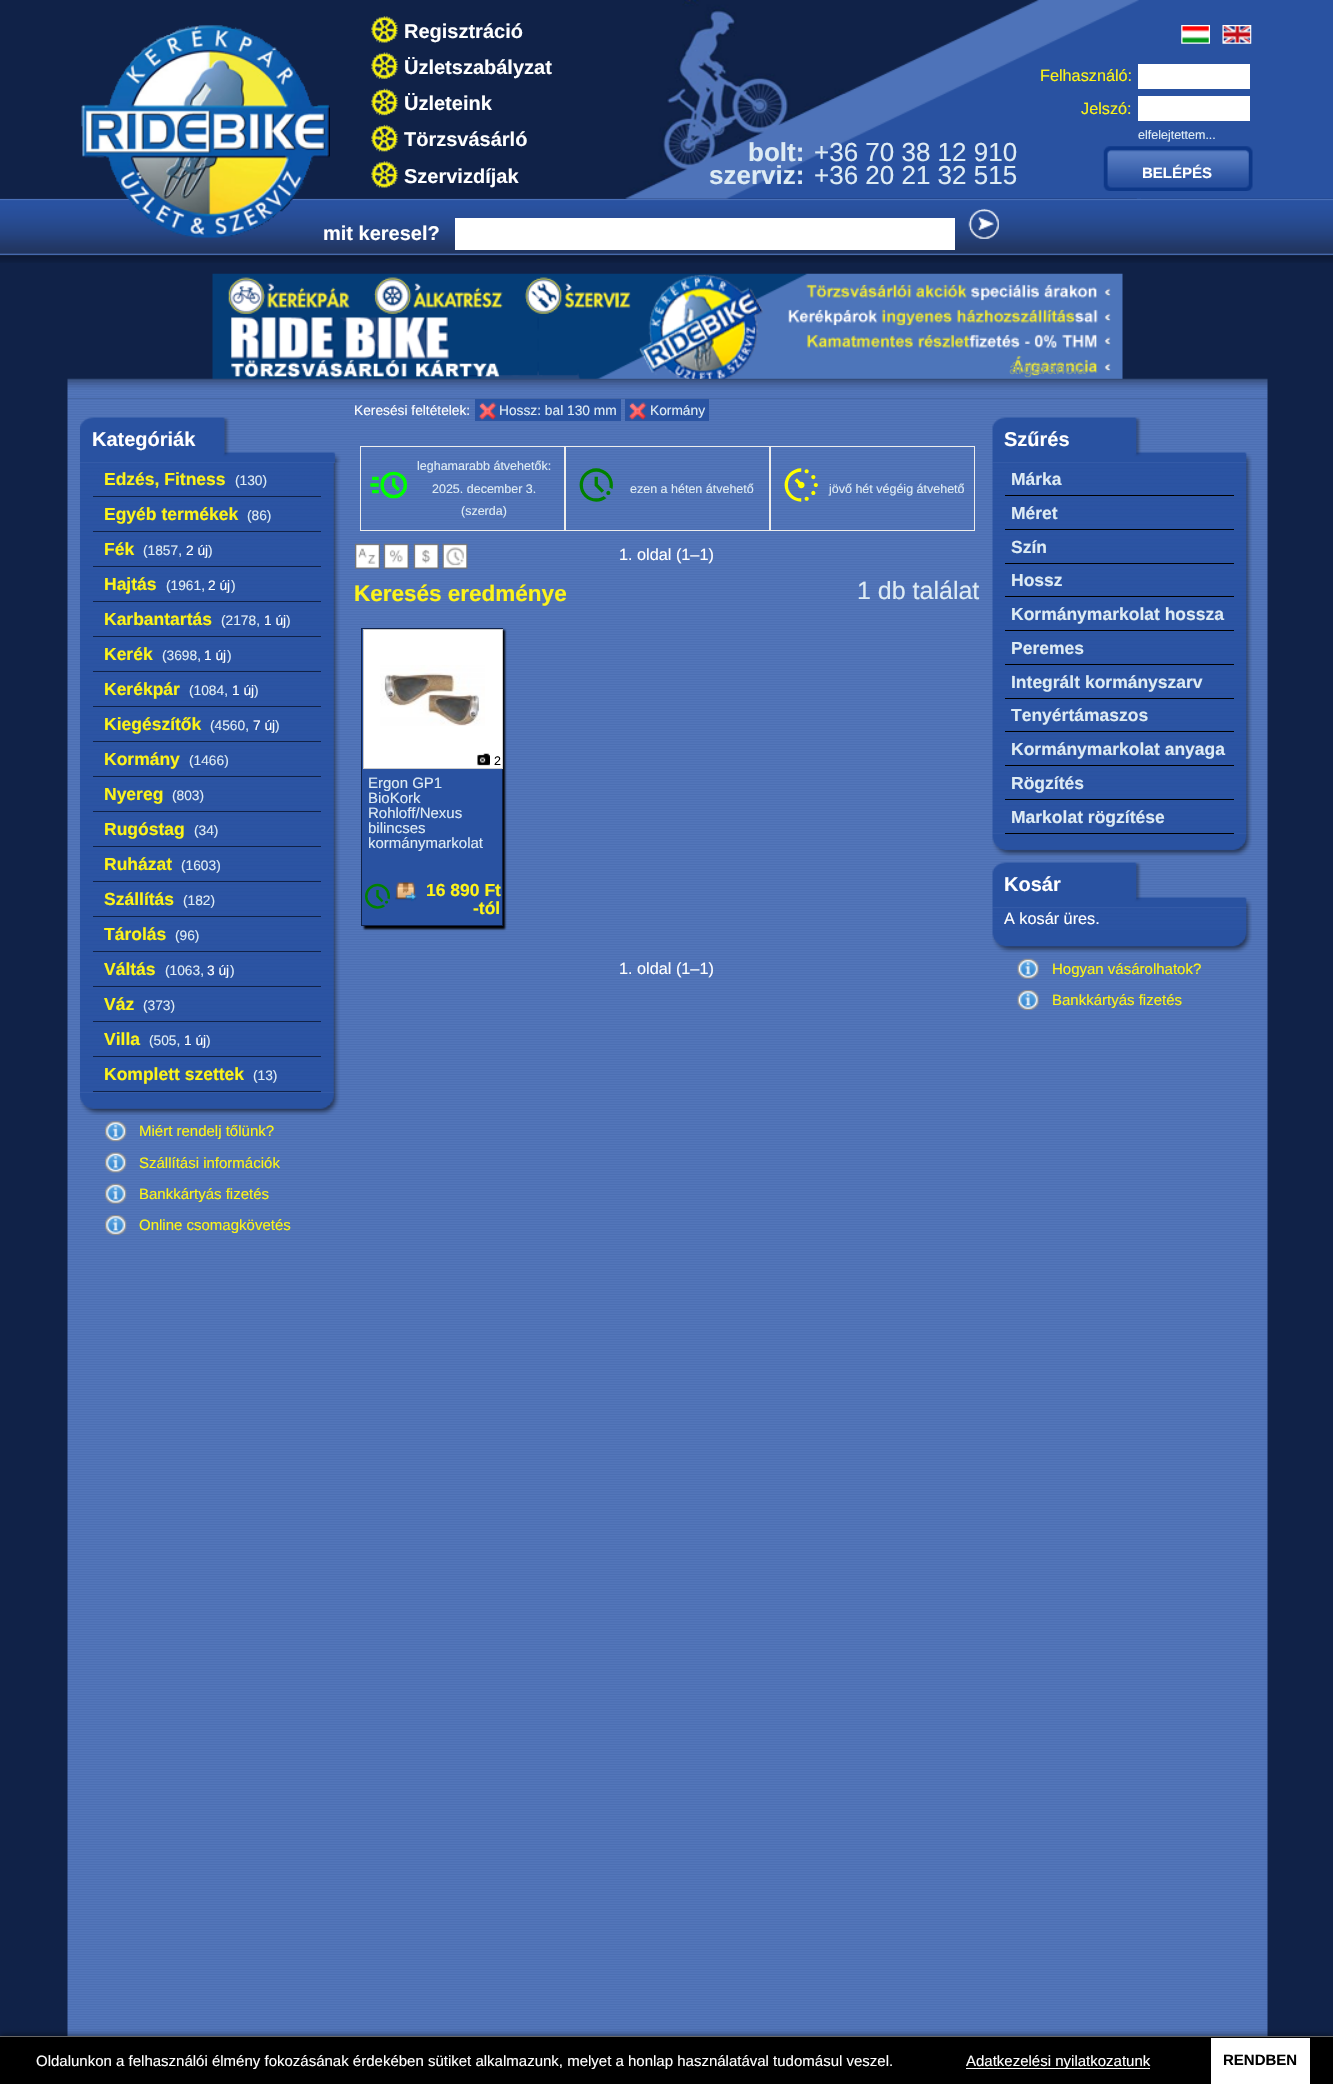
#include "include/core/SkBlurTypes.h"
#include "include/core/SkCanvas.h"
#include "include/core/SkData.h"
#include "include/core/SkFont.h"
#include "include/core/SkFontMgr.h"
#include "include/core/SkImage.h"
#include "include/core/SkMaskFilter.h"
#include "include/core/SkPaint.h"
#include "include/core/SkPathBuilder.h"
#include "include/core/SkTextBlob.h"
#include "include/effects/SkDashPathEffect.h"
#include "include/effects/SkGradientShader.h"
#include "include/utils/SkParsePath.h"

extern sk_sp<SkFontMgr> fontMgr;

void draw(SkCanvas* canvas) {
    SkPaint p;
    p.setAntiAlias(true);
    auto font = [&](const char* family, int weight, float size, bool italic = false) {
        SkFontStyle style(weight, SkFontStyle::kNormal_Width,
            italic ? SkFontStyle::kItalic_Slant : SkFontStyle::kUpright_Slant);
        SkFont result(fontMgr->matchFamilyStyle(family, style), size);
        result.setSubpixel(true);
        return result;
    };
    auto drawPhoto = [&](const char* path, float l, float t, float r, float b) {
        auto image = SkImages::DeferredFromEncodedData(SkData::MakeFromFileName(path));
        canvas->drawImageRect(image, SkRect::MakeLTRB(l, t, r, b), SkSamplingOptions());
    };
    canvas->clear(0xFF102248);
    drawPhoto("media/1.png", 0, 198, 1333, 263);
    drawPhoto("media/2.png", 0, 0, 1333, 199);
    drawPhoto("media/3.png", 624, 0, 1141, 199);
    auto font1 = font("Liberation Sans", 700, 20);
    p.setColor(0xFFFFFFFF);
    canvas->drawString("mit keresel?", 323, 240, font1, p);
    drawPhoto("media/4.png", 81, 25, 330, 238);
    drawPhoto("media/5.png", 371, 16, 398, 43);
    canvas->drawString("Regisztráció", 404, 38, font1, p);
    drawPhoto("media/6.png", 371, 52, 398, 79);
    canvas->drawString("Üzletszabályzat", 404, 74, font1, p);
    drawPhoto("media/7.png", 371, 88, 398, 116);
    canvas->drawString("Üzleteink", 404, 110, font1, p);
    drawPhoto("media/8.png", 371, 124, 398, 152);
    canvas->drawString("Törzsvásárló", 404, 146, font1, p);
    drawPhoto("media/5.png", 371, 161, 398, 188);
    canvas->drawString("Szervizdíjak", 404, 183, font1, p);
    auto font2 = font("Liberation Sans", 700, 26);
    p.setColor(0xFFDDEBF4);
    canvas->drawString("bolt:", 748, 161, font2, p);
    auto font3 = font("Liberation Sans", 400, 26);
    canvas->drawString("+36 70 38 12 910", 814, 161, font3, p);
    canvas->drawString("szerviz:", 709, 184, font2, p);
    canvas->drawString("+36 20 21 32 515", 814, 184, font3, p);
    drawPhoto("media/9.png", 1181, 25, 1210, 44);
    drawPhoto("media/10.png", 1222, 25, 1252, 44);
    auto font4 = font("Liberation Sans", 400, 16.25f);
    p.setColor(0xFFFCF31A);
    canvas->drawString("Felhasználó:", 1040, 81, font4, p);
    p.setColor(0xFFFFFFFF);
    canvas->drawRect(SkRect::MakeLTRB(1138, 64, 1250, 89), p);
    p.setColor(0xFFFCF31A);
    canvas->drawString("Jelszó:", 1081, 114, font4, p);
    p.setColor(0xFFFFFFFF);
    canvas->drawRect(SkRect::MakeLTRB(1138, 96, 1250, 121), p);
    auto font5 = font("Liberation Sans", 400, 12.5f);
    p.setColor(0xFFDDEBF4);
    canvas->drawString("elfelejtettem...", 1138, 139, font5, p);
    drawPhoto("media/11.png", 1103, 146, 1253, 191);
    auto font6 = font("Liberation Sans", 700, 15);
    p.setColor(0xFFFFFFFF);
    canvas->drawString("BELÉPÉS", 1142, 178, font6, p);
    canvas->drawRect(SkRect::MakeLTRB(455, 218, 955, 250), p);
    drawPhoto("media/12.png", 968, 208, 999, 239);
    drawPhoto("media/13.png", 212, 273, 1123, 379);
    p.setColor(0xFF809991);
    canvas->drawString("árgarancia", 1009, 374, font4, p);
    drawPhoto("media/14.png", 67, 398, 1268, 2036);
    drawPhoto("media/15.png", 67, 378, 1268, 399);
    drawPhoto("media/17.png", 80, 462, 340, 1093);
    drawPhoto("media/16.png", 80, 417, 341, 463);
    p.setColor(0xFFFFFFFF);
    canvas->drawString("Kategóriák", 92, 446, font1, p);
    p.setColor(0xFF102248);
    canvas->drawRect(SkRect::MakeLTRB(93, 496, 321, 497), p);
    auto font7 = font("Liberation Sans", 700, 17.5f);
    p.setColor(0xFFFCF31A);
    canvas->drawString("Edzés, Fitness", 104, 485, font7, p);
    auto font8 = font("Liberation Sans", 400, 13.75f);
    p.setColor(0xFFDDEBF4);
    canvas->drawString("(130)", 235, 485, font8, p);
    p.setColor(0xFF102248);
    canvas->drawRect(SkRect::MakeLTRB(93, 531, 321, 532), p);
    p.setColor(0xFFFCF31A);
    canvas->drawString("Egyéb termékek", 104, 520, font7, p);
    p.setColor(0xFFDDEBF4);
    canvas->drawString("(86)", 247, 520, font8, p);
    p.setColor(0xFF102248);
    canvas->drawRect(SkRect::MakeLTRB(93, 566, 321, 567), p);
    p.setColor(0xFFFCF31A);
    canvas->drawString("Fék", 104, 555, font7, p);
    p.setColor(0xFFDDEBF4);
    canvas->drawString("(1857,", 143, 555, font8, p);
    p.setColor(0xFFFFFFFF);
    canvas->drawString("2 új", 186, 555, font8, p);
    p.setColor(0xFFDDEBF4);
    canvas->drawString(")", 208, 555, font8, p);
    p.setColor(0xFF102248);
    canvas->drawRect(SkRect::MakeLTRB(93, 601, 321, 602), p);
    p.setColor(0xFFFCF31A);
    canvas->drawString("Hajtás", 104, 590, font7, p);
    p.setColor(0xFFDDEBF4);
    canvas->drawString("(1961,", 166, 590, font8, p);
    p.setColor(0xFFFFFFFF);
    canvas->drawString("2 új", 208, 590, font8, p);
    p.setColor(0xFFDDEBF4);
    canvas->drawString(")", 231, 590, font8, p);
    p.setColor(0xFF102248);
    canvas->drawRect(SkRect::MakeLTRB(93, 636, 321, 637), p);
    p.setColor(0xFFFCF31A);
    canvas->drawString("Karbantartás", 104, 625, font7, p);
    p.setColor(0xFFDDEBF4);
    canvas->drawString("(2178,", 221, 625, font8, p);
    p.setColor(0xFFFFFFFF);
    canvas->drawString("1 új", 264, 625, font8, p);
    p.setColor(0xFFDDEBF4);
    canvas->drawString(")", 286, 625, font8, p);
    p.setColor(0xFF102248);
    canvas->drawRect(SkRect::MakeLTRB(93, 671, 321, 672), p);
    p.setColor(0xFFFCF31A);
    canvas->drawString("Kerék", 104, 660, font7, p);
    p.setColor(0xFFDDEBF4);
    canvas->drawString("(3698,", 162, 660, font8, p);
    p.setColor(0xFFFFFFFF);
    canvas->drawString("1 új", 204, 660, font8, p);
    p.setColor(0xFFDDEBF4);
    canvas->drawString(")", 227, 660, font8, p);
    p.setColor(0xFF102248);
    canvas->drawRect(SkRect::MakeLTRB(93, 706, 321, 707), p);
    p.setColor(0xFFFCF31A);
    canvas->drawString("Kerékpár", 104, 695, font7, p);
    p.setColor(0xFFDDEBF4);
    canvas->drawString("(1084,", 189, 695, font8, p);
    p.setColor(0xFFFFFFFF);
    canvas->drawString("1 új", 232, 695, font8, p);
    p.setColor(0xFFDDEBF4);
    canvas->drawString(")", 254, 695, font8, p);
    p.setColor(0xFF102248);
    canvas->drawRect(SkRect::MakeLTRB(93, 741, 321, 742), p);
    p.setColor(0xFFFCF31A);
    canvas->drawString("Kiegészítők", 104, 730, font7, p);
    p.setColor(0xFFDDEBF4);
    canvas->drawString("(4560,", 210, 730, font8, p);
    p.setColor(0xFFFFFFFF);
    canvas->drawString("7 új", 253, 730, font8, p);
    p.setColor(0xFFDDEBF4);
    canvas->drawString(")", 275, 730, font8, p);
    p.setColor(0xFF102248);
    canvas->drawRect(SkRect::MakeLTRB(93, 776, 321, 777), p);
    p.setColor(0xFFFCF31A);
    canvas->drawString("Kormány", 104, 765, font7, p);
    p.setColor(0xFFDDEBF4);
    canvas->drawString("(1466)", 189, 765, font8, p);
    p.setColor(0xFF102248);
    canvas->drawRect(SkRect::MakeLTRB(93, 811, 321, 812), p);
    p.setColor(0xFFFCF31A);
    canvas->drawString("Nyereg", 104, 800, font7, p);
    p.setColor(0xFFDDEBF4);
    canvas->drawString("(803)", 172, 800, font8, p);
    p.setColor(0xFF102248);
    canvas->drawRect(SkRect::MakeLTRB(93, 846, 321, 847), p);
    p.setColor(0xFFFCF31A);
    canvas->drawString("Rugóstag", 104, 835, font7, p);
    p.setColor(0xFFDDEBF4);
    canvas->drawString("(34)", 194, 835, font8, p);
    p.setColor(0xFF102248);
    canvas->drawRect(SkRect::MakeLTRB(93, 881, 321, 882), p);
    p.setColor(0xFFFCF31A);
    canvas->drawString("Ruházat", 104, 870, font7, p);
    p.setColor(0xFFDDEBF4);
    canvas->drawString("(1603)", 181, 870, font8, p);
    p.setColor(0xFF102248);
    canvas->drawRect(SkRect::MakeLTRB(93, 916, 321, 917), p);
    p.setColor(0xFFFCF31A);
    canvas->drawString("Szállítás", 104, 905, font7, p);
    p.setColor(0xFFDDEBF4);
    canvas->drawString("(182)", 183, 905, font8, p);
    p.setColor(0xFF102248);
    canvas->drawRect(SkRect::MakeLTRB(93, 951, 321, 952), p);
    p.setColor(0xFFFCF31A);
    canvas->drawString("Tárolás", 104, 940, font7, p);
    p.setColor(0xFFDDEBF4);
    canvas->drawString("(96)", 175, 940, font8, p);
    p.setColor(0xFF102248);
    canvas->drawRect(SkRect::MakeLTRB(93, 986, 321, 987), p);
    p.setColor(0xFFFCF31A);
    canvas->drawString("Váltás", 104, 975, font7, p);
    p.setColor(0xFFDDEBF4);
    canvas->drawString("(1063,", 165, 975, font8, p);
    p.setColor(0xFFFFFFFF);
    canvas->drawString("3 új", 207, 975, font8, p);
    p.setColor(0xFFDDEBF4);
    canvas->drawString(")", 230, 975, font8, p);
    p.setColor(0xFF102248);
    canvas->drawRect(SkRect::MakeLTRB(93, 1021, 321, 1022), p);
    p.setColor(0xFFFCF31A);
    canvas->drawString("Váz", 104, 1010, font7, p);
    p.setColor(0xFFDDEBF4);
    canvas->drawString("(373)", 143, 1010, font8, p);
    p.setColor(0xFF102248);
    canvas->drawRect(SkRect::MakeLTRB(93, 1056, 321, 1057), p);
    p.setColor(0xFFFCF31A);
    canvas->drawString("Villa", 104, 1045, font7, p);
    p.setColor(0xFFDDEBF4);
    canvas->drawString("(505,", 149, 1045, font8, p);
    p.setColor(0xFFFFFFFF);
    canvas->drawString("1 új", 184, 1045, font8, p);
    p.setColor(0xFFDDEBF4);
    canvas->drawString(")", 206, 1045, font8, p);
    p.setColor(0xFF102248);
    canvas->drawRect(SkRect::MakeLTRB(93, 1091, 321, 1092), p);
    p.setColor(0xFFFCF31A);
    canvas->drawString("Komplett szettek", 104, 1080, font7, p);
    p.setColor(0xFFDDEBF4);
    canvas->drawString("(13)", 253, 1080, font8, p);
    drawPhoto("media/18.png", 80, 1092, 340, 1115);
    drawPhoto("media/19.png", 105, 1121, 127, 1142);
    auto font9 = font("Liberation Sans", 400, 15);
    p.setColor(0xFFFCF31A);
    canvas->drawString("Miért rendelj tőlünk?", 139, 1136, font9, p);
    drawPhoto("media/20.png", 105, 1152, 127, 1173);
    canvas->drawString("Szállítási információk", 139, 1168, font9, p);
    drawPhoto("media/21.png", 105, 1183, 127, 1204);
    canvas->drawString("Bankkártyás fizetés", 139, 1199, font9, p);
    drawPhoto("media/22.png", 105, 1215, 127, 1235);
    canvas->drawString("Online csomagkövetés", 139, 1230, font9, p);
    p.setColor(0xFFFFFFFF);
    canvas->drawString("Keresési feltételek:", 354, 415, font8, p);
    p.setColor(0xFF2A54A2);
    canvas->drawRect(SkRect::MakeLTRB(475, 399, 621, 421), p);
    drawPhoto("media/23.png", 478, 402, 497, 421);
    p.setColor(0xFFDDEBF4);
    canvas->drawString("Hossz: bal 130 mm", 499, 415, font8, p);
    p.setColor(0xFF2A54A2);
    canvas->drawRect(SkRect::MakeLTRB(625, 399, 709, 421), p);
    drawPhoto("media/23.png", 628, 402, 647, 421);
    p.setColor(0xFFDDEBF4);
    canvas->drawString("Kormány", 650, 415, font8, p);
    p.setStyle(SkPaint::kStroke_Style);
    p.setStrokeWidth(1);
    p.setColor(0xFFEEEEEE);
    canvas->drawRect(SkRect::MakeLTRB(360.5f, 446.5f, 564.5f, 530.5f), p);
    drawPhoto("media/24.png", 370, 471, 408, 499);
    p.setStyle(SkPaint::kFill_Style);
    p.setColor(0xFFDDEBF4);
    {
        const struct { const char* s; float x, y; } items[] = {
            {"leghamarabb átvehetők:", 417, 470},
            {"2025. december 3.", 432, 493},
            {"(szerda)", 461, 515},
        };
        for (auto [s, x, y] : items) {
            canvas->drawString(s, x, y, font5, p);
        }
    }
    p.setStyle(SkPaint::kStroke_Style);
    p.setColor(0xFFEEEEEE);
    canvas->drawRect(SkRect::MakeLTRB(565.5f, 446.5f, 769.5f, 530.5f), p);
    drawPhoto("media/25.png", 579, 468, 613, 502);
    p.setStyle(SkPaint::kFill_Style);
    p.setColor(0xFFDDEBF4);
    canvas->drawString("ezen a héten átvehető", 630, 493, font5, p);
    p.setStyle(SkPaint::kStroke_Style);
    p.setColor(0xFFEEEEEE);
    canvas->drawRect(SkRect::MakeLTRB(770.5f, 446.5f, 974.5f, 530.5f), p);
    drawPhoto("media/26.png", 784, 468, 818, 502);
    p.setStyle(SkPaint::kFill_Style);
    p.setColor(0xFFDDEBF4);
    canvas->drawString("jövő hét végéig átvehető", 829, 493, font5, p);
    drawPhoto("media/27.png", 355, 543, 380, 569);
    drawPhoto("media/28.png", 383, 543, 409, 569);
    drawPhoto("media/29.png", 413, 543, 439, 569);
    drawPhoto("media/30.png", 442, 543, 468, 569);
    p.setColor(0xFFFFFFFF);
    canvas->drawString("1. oldal (1–1)", 619, 560, font4, p);
    auto font10 = font("Liberation Sans", 700, 22.5f);
    p.setColor(0xFFFCF31A);
    canvas->drawString("Keresés eredménye", 354, 601, font10, p);
    auto font11 = font("Liberation Sans", 400, 25);
    p.setColor(0xFFDDEBF4);
    canvas->drawString("1 db találat", 857, 599, font11, p);
    p.setColor(0xFF000000);
    p.setMaskFilter(SkMaskFilter::MakeBlur(kNormal_SkBlurStyle, 1));
    canvas->drawRect(SkRect::MakeLTRB(364, 630, 505, 929), p);
    p.setMaskFilter(nullptr);
    p.setColor(0xFF2952A1);
    canvas->drawRect(SkRect::MakeLTRB(361.5f, 628.5f, 502.5f, 925.5f), p);
    p.setStyle(SkPaint::kStroke_Style);
    p.setColor(0xFF102248);
    canvas->drawRect(SkRect::MakeLTRB(361.5f, 628.5f, 502.5f, 925.5f), p);
    p.setStyle(SkPaint::kFill_Style);
    p.setColor(0xFFFFFFFF);
    canvas->drawRect(SkRect::MakeLTRB(363.5f, 629.5f, 502.5f, 768.5f), p);
    p.setStyle(SkPaint::kStroke_Style);
    p.setColor(0xFFCCCCCC);
    canvas->drawRect(SkRect::MakeLTRB(363.5f, 629.5f, 502.5f, 768.5f), p);
    drawPhoto("media/31.png", 380, 665, 485, 726);
    drawPhoto("media/32.png", 477, 753, 490, 766);
    p.setStyle(SkPaint::kFill_Style);
    p.setColor(0xFF000000);
    canvas->drawString("2", 494, 765, font5, p);
    p.setColor(0xFFDDEBF4);
    {
        const struct { const char* s; float x, y; } items[] = {
            {"Ergon GP1", 368, 788},
            {"BioKork", 368, 803},
            {"Rohloff/Nexus", 368, 818},
            {"bilincses", 368, 833},
            {"kormánymarkolat", 368, 848},
        };
        for (auto [s, x, y] : items) {
            canvas->drawString(s, x, y, font9, p);
        }
    }
    drawPhoto("media/33.png", 365, 883, 390, 909);
    drawPhoto("media/34.png", 395, 882, 417, 902);
    p.setColor(0xFFFCF31A);
    canvas->drawString("16 890 Ft", 426, 896, font7, p);
    canvas->drawString("-tól", 473, 914, font7, p);
    p.setColor(0xFFFFFFFF);
    canvas->drawString("1. oldal (1–1)", 619, 974, font4, p);
    drawPhoto("media/36.png", 992, 462, 1252, 834);
    drawPhoto("media/35.png", 992, 417, 1252, 463);
    canvas->drawString("Szűrés", 1004, 446, font1, p);
    p.setColor(0xFF000000);
    canvas->drawRect(SkRect::MakeLTRB(1005, 495, 1234, 496), p);
    p.setColor(0xFFDDEBF4);
    canvas->drawString("Márka", 1011, 485, font7, p);
    p.setColor(0xFF000000);
    canvas->drawRect(SkRect::MakeLTRB(1005, 529, 1234, 530), p);
    p.setColor(0xFFDDEBF4);
    canvas->drawString("Méret", 1011, 519, font7, p);
    p.setColor(0xFF000000);
    canvas->drawRect(SkRect::MakeLTRB(1005, 563, 1234, 564), p);
    p.setColor(0xFFDDEBF4);
    canvas->drawString("Szín", 1011, 553, font7, p);
    p.setColor(0xFF000000);
    canvas->drawRect(SkRect::MakeLTRB(1005, 596, 1234, 597), p);
    p.setColor(0xFFDDEBF4);
    canvas->drawString("Hossz", 1011, 586, font7, p);
    p.setColor(0xFF000000);
    canvas->drawRect(SkRect::MakeLTRB(1005, 630, 1234, 631), p);
    p.setColor(0xFFDDEBF4);
    canvas->drawString("Kormánymarkolat hossza", 1011, 620, font7, p);
    p.setColor(0xFF000000);
    canvas->drawRect(SkRect::MakeLTRB(1005, 664, 1234, 665), p);
    p.setColor(0xFFDDEBF4);
    canvas->drawString("Peremes", 1011, 654, font7, p);
    p.setColor(0xFF000000);
    canvas->drawRect(SkRect::MakeLTRB(1005, 698, 1234, 699), p);
    p.setColor(0xFFDDEBF4);
    canvas->drawString("Integrált kormányszarv", 1011, 688, font7, p);
    p.setColor(0xFF000000);
    canvas->drawRect(SkRect::MakeLTRB(1005, 731, 1234, 732), p);
    p.setColor(0xFFDDEBF4);
    canvas->drawString("Tenyértámaszos", 1011, 721, font7, p);
    p.setColor(0xFF000000);
    canvas->drawRect(SkRect::MakeLTRB(1005, 765, 1234, 766), p);
    p.setColor(0xFFDDEBF4);
    canvas->drawString("Kormánymarkolat anyaga", 1011, 755, font7, p);
    p.setColor(0xFF000000);
    canvas->drawRect(SkRect::MakeLTRB(1005, 799, 1234, 800), p);
    p.setColor(0xFFDDEBF4);
    canvas->drawString("Rögzítés", 1011, 789, font7, p);
    drawPhoto("media/37.png", 992, 833, 1252, 856);
    p.setColor(0xFF000000);
    canvas->drawRect(SkRect::MakeLTRB(1005, 833, 1234, 834), p);
    p.setColor(0xFFDDEBF4);
    canvas->drawString("Markolat rögzítése", 1011, 823, font7, p);
    drawPhoto("media/38.png", 992, 907, 1252, 930);
    drawPhoto("media/35.png", 992, 862, 1252, 908);
    p.setColor(0xFFFFFFFF);
    canvas->drawString("Kosár", 1004, 891, font1, p);
    canvas->drawString("A kosár üres.", 1004, 924, font4, p);
    drawPhoto("media/39.png", 992, 930, 1252, 953);
    drawPhoto("media/40.png", 1017, 958, 1039, 979);
    p.setColor(0xFFFCF31A);
    canvas->drawString("Hogyan vásárolhatok?", 1052, 974, font9, p);
    drawPhoto("media/41.png", 1017, 990, 1039, 1010);
    canvas->drawString("Bankkártyás fizetés", 1052, 1005, font9, p);
    p.setColor(0x80000000);
    p.setMaskFilter(SkMaskFilter::MakeBlur(kNormal_SkBlurStyle, 3));
    canvas->drawRect(SkRect::MakeLTRB(0, 2035, 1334, 2084), p);
    p.setMaskFilter(nullptr);
    p.setColor(0xFF000000);
    canvas->drawRect(SkRect::MakeLTRB(0, 2037, 1333, 2084), p);
    p.setColor(0xFF666666);
    canvas->drawRect(SkRect::MakeLTRB(0, 2036, 1333, 2037), p);
    p.setColor(0xFFFFFFFF);
    canvas->drawString("Oldalunkon a felhasználói élmény fokozásának érdekében sütiket alkalmazunk, melyet a honlap használatával tudomásul veszel.", 36, 2066, font9, p);
    canvas->drawRect(SkRect::MakeLTRB(966, 2068, 1150, 2069), p);
    canvas->drawString("Adatkezelési nyilatkozatunk", 966, 2066, font9, p);
    canvas->drawRect(SkRect::MakeLTRB(1211, 2038, 1310, 2084), p);
    p.setColor(0xFF000000);
    canvas->drawString("RENDBEN", 1223, 2065, font6, p);
}
